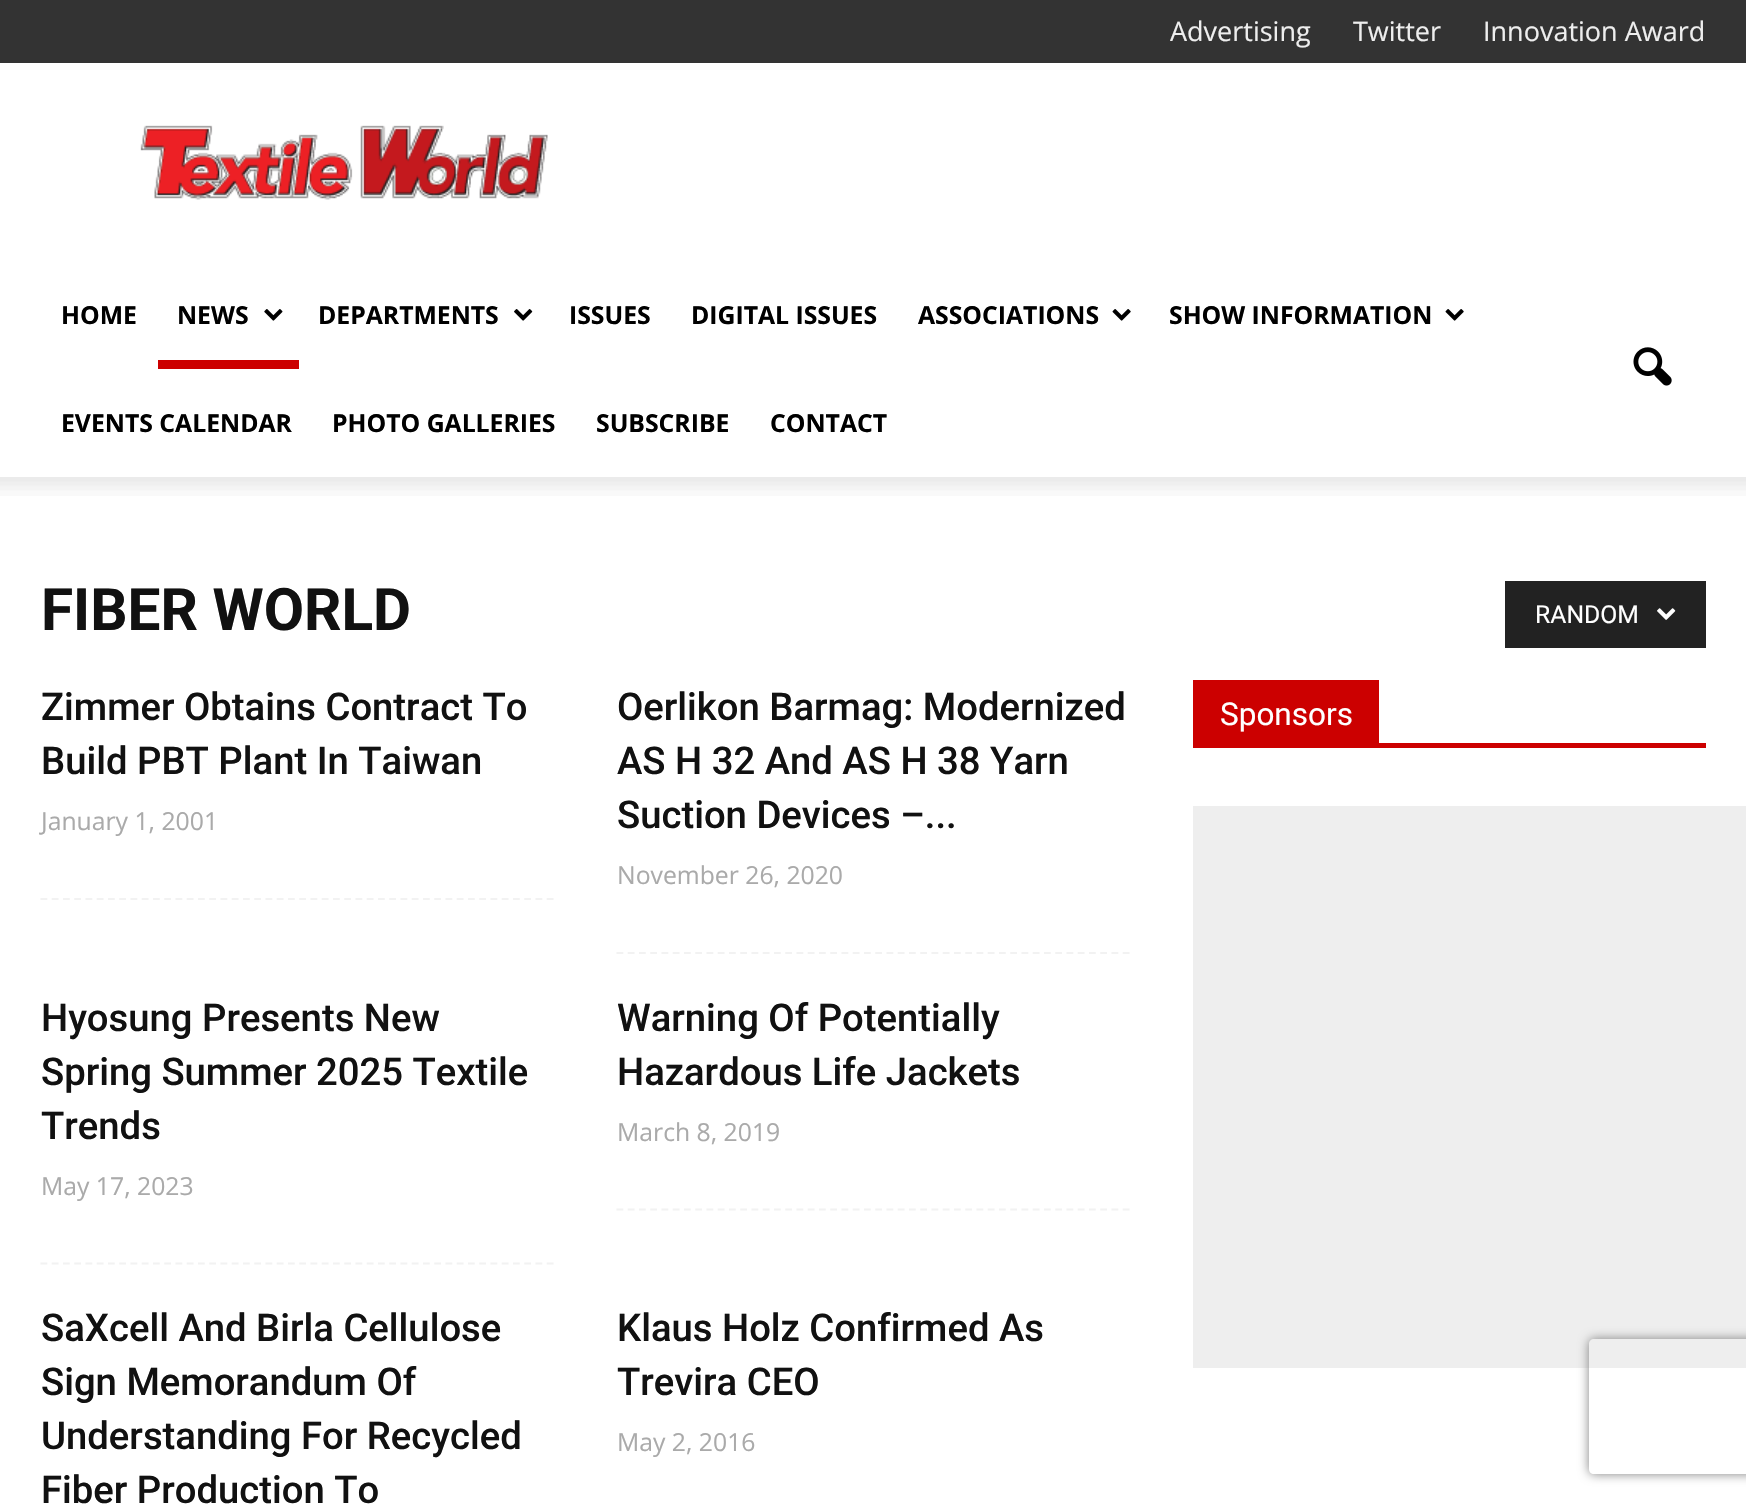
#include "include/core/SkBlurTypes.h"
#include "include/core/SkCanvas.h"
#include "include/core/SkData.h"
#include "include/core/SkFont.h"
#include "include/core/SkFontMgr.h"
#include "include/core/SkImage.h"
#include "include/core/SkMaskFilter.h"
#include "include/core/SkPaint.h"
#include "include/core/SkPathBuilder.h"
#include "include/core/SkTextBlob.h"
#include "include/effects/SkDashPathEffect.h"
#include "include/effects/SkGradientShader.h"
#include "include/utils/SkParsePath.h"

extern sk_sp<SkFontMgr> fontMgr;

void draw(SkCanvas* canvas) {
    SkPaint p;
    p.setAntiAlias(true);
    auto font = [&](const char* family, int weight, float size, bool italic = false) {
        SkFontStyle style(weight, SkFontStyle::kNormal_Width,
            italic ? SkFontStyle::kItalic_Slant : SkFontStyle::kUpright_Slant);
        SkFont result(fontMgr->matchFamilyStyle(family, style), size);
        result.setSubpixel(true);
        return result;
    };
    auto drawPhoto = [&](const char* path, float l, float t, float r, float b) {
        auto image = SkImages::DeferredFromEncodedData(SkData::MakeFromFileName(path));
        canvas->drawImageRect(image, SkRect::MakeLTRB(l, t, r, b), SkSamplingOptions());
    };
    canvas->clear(0xFFFFFFFF);
    p.setColor(0xFF333333);
    canvas->drawRect(SkRect::MakeLTRB(0, 0, 1746, 63), p);
    auto font1 = font("Open Sans", 400, 27);
    p.setColor(0xFFEEEEEE);
    {
        const struct { const char* s; float x, y; } items[] = {
            {"Advertising", 1170, 41},
            {"Twitter", 1353, 41},
            {"Innovation Award", 1483, 41},
        };
        for (auto [s, x, y] : items) {
            canvas->drawString(s, x, y, font1, p);
        }
    }
    drawPhoto("media/1.png", 140, 125, 548, 200);
    auto font2 = font("Open Sans", 700, 24.75f);
    p.setColor(0xFF000000);
    canvas->drawString("HOME", 61, 324, font2, p);
    canvas->drawString("NEWS", 177, 324, font2, p);
    drawPhoto("media/2.png", 264, 309, 283, 321);
    p.setColor(0xFFCC0000);
    canvas->drawRect(SkRect::MakeLTRB(158, 360, 299, 369), p);
    p.setColor(0xFF000000);
    canvas->drawString("DEPARTMENTS", 318, 324, font2, p);
    drawPhoto("media/3.png", 514, 309, 533, 321);
    {
        const struct { const char* s; float x, y; } items[] = {
            {"ISSUES", 569, 324},
            {"DIGITAL ISSUES", 691, 324},
            {"ASSOCIATIONS", 918, 324},
        };
        for (auto [s, x, y] : items) {
            canvas->drawString(s, x, y, font2, p);
        }
    }
    drawPhoto("media/4.png", 1112, 309, 1131, 321);
    canvas->drawString("SHOW INFORMATION", 1169, 324, font2, p);
    drawPhoto("media/4.png", 1445, 309, 1464, 321);
    {
        const struct { const char* s; float x, y; } items[] = {
            {"EVENTS CALENDAR", 61, 432},
            {"PHOTO GALLERIES", 332, 432},
            {"SUBSCRIBE", 596, 432},
            {"CONTACT", 770, 432},
        };
        for (auto [s, x, y] : items) {
            canvas->drawString(s, x, y, font2, p);
        }
    }
    drawPhoto("media/5.png", 1633, 347, 1672, 386);
    drawPhoto("media/6.png", 0, 477, 1746, 496);
    auto font3 = font("Roboto", 700, 58.5f);
    p.setColor(0xFF111111);
    canvas->drawString("FIBER WORLD", 41, 630, font3, p);
    p.setColor(0xFF222222);
    canvas->drawRect(SkRect::MakeLTRB(1505, 581, 1706, 648), p);
    auto font4 = font("Roboto", 400, 24.75f);
    p.setColor(0xFFFFFFFF);
    canvas->drawString("RANDOM", 1535, 623, font4, p);
    drawPhoto("media/7.png", 1657, 608, 1676, 620);
    p.setStyle(SkPaint::kStroke_Style);
    p.setStrokeWidth(2.2f);
    p.setColor(0xFFF2F2F2);
    p.setPathEffect(SkDashPathEffect::Make({{6.75f, 4.5f}}, 0));
    canvas->drawPath(SkPathBuilder().moveTo(40.5f, 899).lineTo(553.5f, 899).detach(), p);
    p.setPathEffect(nullptr);
    auto font5 = font("Roboto", 500, 38.25f);
    p.setStyle(SkPaint::kFill_Style);
    p.setColor(0xFF111111);
    canvas->drawString("Zimmer Obtains Contract To", 41, 720, font5, p);
    canvas->drawString("Build PBT Plant In Taiwan", 41, 774, font5, p);
    auto font6 = font("Open Sans", 400, 24.75f);
    p.setColor(0xFFAAAAAA);
    canvas->drawString("January 1, 2001", 41, 830, font6, p);
    p.setStyle(SkPaint::kStroke_Style);
    p.setColor(0xFFF2F2F2);
    p.setPathEffect(SkDashPathEffect::Make({{6.75f, 4.5f}}, 0));
    canvas->drawPath(SkPathBuilder().moveTo(616.5f, 953).lineTo(1129.5f, 953).detach(), p);
    p.setPathEffect(nullptr);
    p.setStyle(SkPaint::kFill_Style);
    p.setColor(0xFF111111);
    {
        const struct { const char* s; float x, y; } items[] = {
            {"Oerlikon Barmag: Modernized", 617, 720},
            {"AS H 32 And AS H 38 Yarn", 617, 774},
            {"Suction Devices –...", 617, 828},
        };
        for (auto [s, x, y] : items) {
            canvas->drawString(s, x, y, font5, p);
        }
    }
    p.setColor(0xFFAAAAAA);
    canvas->drawString("November 26, 2020", 617, 884, font6, p);
    p.setStyle(SkPaint::kStroke_Style);
    p.setColor(0xFFF2F2F2);
    p.setPathEffect(SkDashPathEffect::Make({{6.75f, 4.5f}}, 0));
    canvas->drawPath(SkPathBuilder().moveTo(40.5f, 1263.5f).lineTo(553.5f, 1263.5f).detach(), p);
    p.setPathEffect(nullptr);
    p.setStyle(SkPaint::kFill_Style);
    p.setColor(0xFF111111);
    {
        const struct { const char* s; float x, y; } items[] = {
            {"Hyosung Presents New", 41, 1031},
            {"Spring Summer 2025 Textile", 41, 1085},
            {"Trends", 41, 1139},
        };
        for (auto [s, x, y] : items) {
            canvas->drawString(s, x, y, font5, p);
        }
    }
    p.setColor(0xFFAAAAAA);
    canvas->drawString("May 17, 2023", 41, 1195, font6, p);
    p.setStyle(SkPaint::kStroke_Style);
    p.setColor(0xFFF2F2F2);
    p.setPathEffect(SkDashPathEffect::Make({{6.75f, 4.5f}}, 0));
    canvas->drawPath(SkPathBuilder().moveTo(616.5f, 1209.5f).lineTo(1129.5f, 1209.5f).detach(), p);
    p.setPathEffect(nullptr);
    p.setStyle(SkPaint::kFill_Style);
    p.setColor(0xFF111111);
    canvas->drawString("Warning Of Potentially", 617, 1031, font5, p);
    canvas->drawString("Hazardous Life Jackets", 617, 1085, font5, p);
    p.setColor(0xFFAAAAAA);
    canvas->drawString("March 8, 2019", 617, 1141, font6, p);
    p.setColor(0xFF111111);
    {
        const struct { const char* s; float x, y; } items[] = {
            {"SaXcell And Birla Cellulose", 41, 1341},
            {"Sign Memorandum Of", 41, 1395},
            {"Understanding For Recycled", 41, 1449},
            {"Fiber Production To", 41, 1503},
            {"Klaus Holz Confirmed As", 617, 1341},
            {"Trevira CEO", 617, 1395},
        };
        for (auto [s, x, y] : items) {
            canvas->drawString(s, x, y, font5, p);
        }
    }
    p.setColor(0xFFAAAAAA);
    canvas->drawString("May 2, 2016", 617, 1451, font6, p);
    p.setColor(0xFFCC0000);
    canvas->drawRect(SkRect::MakeLTRB(1193, 743, 1706, 748), p);
    canvas->drawRect(SkRect::MakeLTRB(1193, 680, 1379, 743), p);
    auto font7 = font("Roboto", 400, 31.5f);
    p.setColor(0xFFFFFFFF);
    canvas->drawString("Sponsors", 1220, 725, font7, p);
    p.setColor(0xFFEEEEEE);
    canvas->drawRect(SkRect::MakeLTRB(1193, 806, 1746, 1368), p);
    canvas->save();
    canvas->clipPath(SkPathBuilder(SkPathFillType::kEvenOdd).moveTo(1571, 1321).lineTo(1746, 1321).lineTo(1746, 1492).lineTo(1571, 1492).close().moveTo(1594, 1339).lineTo(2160, 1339).cubicTo(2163, 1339, 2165, 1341, 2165, 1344).lineTo(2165, 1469).cubicTo(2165, 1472, 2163, 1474, 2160, 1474).lineTo(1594, 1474).cubicTo(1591, 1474, 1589, 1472, 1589, 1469).lineTo(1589, 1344).cubicTo(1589, 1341, 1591, 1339, 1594, 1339).close().detach(), true);
    p.setColor(0xFF808080);
    p.setMaskFilter(SkMaskFilter::MakeBlur(kNormal_SkBlurStyle, 5.5f));
    canvas->drawRoundRect(SkRect::MakeLTRB(1589, 1339, 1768, 1474), 5, 5, p);
    p.setMaskFilter(nullptr);
    canvas->restore();
}
